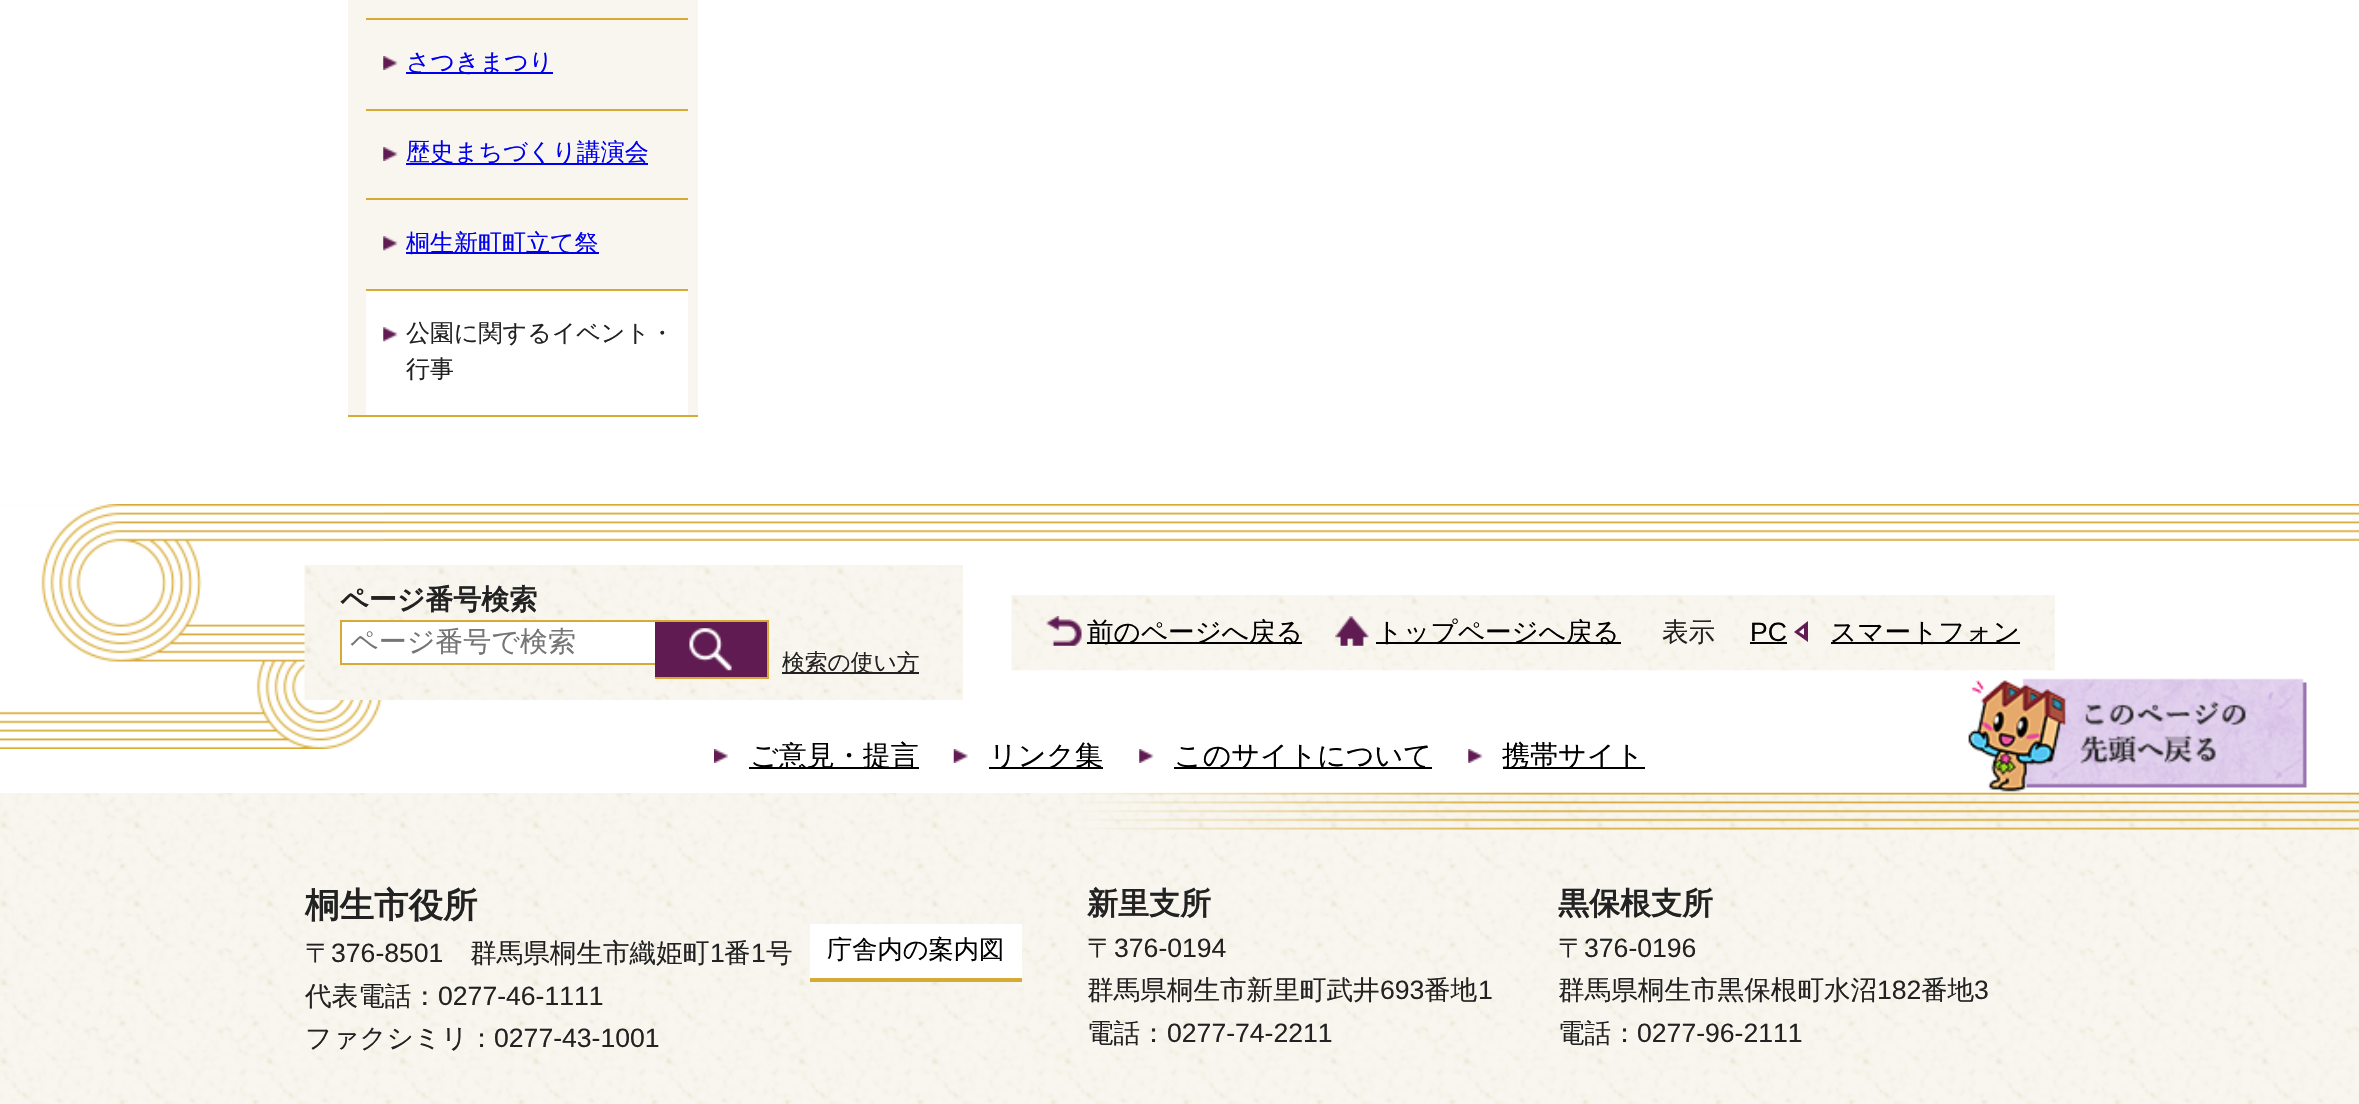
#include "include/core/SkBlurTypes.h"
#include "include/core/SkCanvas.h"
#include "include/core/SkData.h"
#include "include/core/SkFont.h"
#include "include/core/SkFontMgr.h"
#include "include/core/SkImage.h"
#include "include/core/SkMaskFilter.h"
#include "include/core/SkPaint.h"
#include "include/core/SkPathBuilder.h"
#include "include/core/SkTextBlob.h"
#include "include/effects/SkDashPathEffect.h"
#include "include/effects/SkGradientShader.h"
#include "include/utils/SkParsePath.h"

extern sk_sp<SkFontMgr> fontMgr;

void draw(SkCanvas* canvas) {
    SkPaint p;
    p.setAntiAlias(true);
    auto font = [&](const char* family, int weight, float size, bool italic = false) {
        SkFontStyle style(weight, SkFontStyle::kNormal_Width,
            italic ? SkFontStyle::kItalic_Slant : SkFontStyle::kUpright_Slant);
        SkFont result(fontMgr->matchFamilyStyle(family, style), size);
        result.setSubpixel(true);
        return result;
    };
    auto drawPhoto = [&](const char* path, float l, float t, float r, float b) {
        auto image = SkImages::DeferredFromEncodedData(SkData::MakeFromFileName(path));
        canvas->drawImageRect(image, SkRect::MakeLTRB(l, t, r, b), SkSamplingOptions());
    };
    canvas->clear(0xFFFFFFFF);
    p.setColor(0xFFF8F6EF);
    canvas->drawRect(SkRect::MakeLTRB(348, 0, 698, 415), p);
    p.setColor(0xFFD6AA35);
    canvas->drawRect(SkRect::MakeLTRB(348, 415, 698, 417), p);
    drawPhoto("media/1.png", 383, 56, 398, 70);
    canvas->drawRect(SkRect::MakeLTRB(366, 18, 688, 20), p);
    p.setColor(0xFF0000EE);
    canvas->drawRect(SkRect::MakeLTRB(406, 72, 553, 74), p);
    auto font1 = font("WenQuanYi Zen Hei", 500, 24);
    canvas->drawString("さつきまつり", 406, 70, font1, p);
    drawPhoto("media/1.png", 383, 147, 398, 161);
    p.setColor(0xFFD6AA35);
    canvas->drawRect(SkRect::MakeLTRB(366, 109, 688, 111), p);
    p.setColor(0xFF0000EE);
    canvas->drawRect(SkRect::MakeLTRB(406, 163, 648, 165), p);
    canvas->drawString("歴史まちづくり講演会", 406, 160, font1, p);
    drawPhoto("media/2.png", 383, 236, 398, 251);
    p.setColor(0xFFD6AA35);
    canvas->drawRect(SkRect::MakeLTRB(366, 198, 688, 200), p);
    p.setColor(0xFF0000EE);
    canvas->drawRect(SkRect::MakeLTRB(406, 252, 599, 254), p);
    canvas->drawString("桐生新町町立て祭", 406, 251, font1, p);
    p.setColor(0xFFFFFFFF);
    canvas->drawRect(SkRect::MakeLTRB(366, 291, 688, 415), p);
    drawPhoto("media/3.png", 383, 327, 398, 342);
    p.setColor(0xFFD6AA35);
    canvas->drawRect(SkRect::MakeLTRB(366, 289, 688, 291), p);
    p.setColor(0xFF222222);
    canvas->drawString("公園に関するイベント・", 406, 341, font1, p);
    canvas->drawString("行事", 406, 377, font1, p);
    drawPhoto("media/4.png", 0, 793, 2359, 1104);
    drawPhoto("media/5.png", 0, 504, 2359, 749);
    p.setColor(0xFFF8F6EF);
    canvas->drawRect(SkRect::MakeLTRB(305, 565, 963, 700), p);
    drawPhoto("media/6.png", 304, 565, 963, 700);
    auto font2 = font("WenQuanYi Zen Hei", 700, 28);
    p.setColor(0xFF222222);
    canvas->drawString("ページ番号検索", 340, 609, font2, p);
    {
        const struct { float l, t, r, b; SkColor color; } items[] = {
            {342, 622, 655, 663, 0xFFFFFFFF},
            {340, 620, 768, 622, 0xFFD6AA34},
            {340, 663, 655, 665, 0xFFD6AA34},
            {340, 620, 342, 665, 0xFFD6AA34},
        };
        for (auto [l, t, r, b, color] : items) {
            p.setColor(color);
            canvas->drawRect(SkRect::MakeLTRB(l, t, r, b), p);
        }
    }
    auto font3 = font("WenQuanYi Zen Hei", 500, 28);
    p.setColor(0xFF757575);
    canvas->drawString("ページ番号で検索", 350, 651, font3, p);
    {
        const struct { float l, t, r, b; SkColor color; } items[] = {
            {655, 622, 767, 677, 0xFF601C52},
            {767, 620, 769, 679, 0xFFD6AA34},
            {655, 677, 768, 679, 0xFFD6AA34},
        };
        for (auto [l, t, r, b, color] : items) {
            p.setColor(color);
            canvas->drawRect(SkRect::MakeLTRB(l, t, r, b), p);
        }
    }
    drawPhoto("media/7.png", 689, 628, 732, 671);
    p.setColor(0xFF222222);
    canvas->drawRect(SkRect::MakeLTRB(782, 672, 919, 674), p);
    auto font4 = font("WenQuanYi Zen Hei", 500, 22.75f);
    canvas->drawString("検索の使い方", 782, 670, font4, p);
    p.setColor(0xFFF8F6EF);
    canvas->drawRect(SkRect::MakeLTRB(2054, 595, 2055, 670), p);
    drawPhoto("media/8.png", 1011, 595, 2055, 671);
    drawPhoto("media/9.png", 1046, 616, 1082, 646);
    p.setColor(0xFF000000);
    canvas->drawRect(SkRect::MakeLTRB(1087, 642, 1302, 644), p);
    auto font5 = font("WenQuanYi Zen Hei", 500, 26.6f);
    canvas->drawString("前のページへ戻る", 1087, 641, font5, p);
    drawPhoto("media/10.png", 1335, 616, 1369, 646);
    canvas->drawRect(SkRect::MakeLTRB(1376, 642, 1621, 644), p);
    canvas->drawString("トップページへ戻る", 1376, 641, font5, p);
    p.setColor(0xFF222222);
    canvas->drawString("表示", 1662, 641, font5, p);
    auto font6 = font("Liberation Sans", 400, 26.6f);
    p.setColor(0xFF000000);
    canvas->drawString("PC", 1750, 641, font6, p);
    canvas->drawRect(SkRect::MakeLTRB(1750, 642, 1787, 644), p);
    p.setColor(0xFF601C52);
    canvas->drawPath(SkPathBuilder().moveTo(1808, 621).lineTo(1808, 642).lineTo(1794, 632).close().detach(), p);
    p.setColor(0xFFFFFFFF);
    canvas->drawPath(SkPathBuilder().moveTo(1804, 628).lineTo(1804, 635).lineTo(1799, 632).close().detach(), p);
    p.setColor(0xFF000000);
    canvas->drawRect(SkRect::MakeLTRB(1831, 642, 2020, 644), p);
    canvas->drawString("スマートフォン", 1830, 641, font5, p);
    drawPhoto("media/11.png", 1968, 678, 2307, 792);
    drawPhoto("media/12.png", 714, 749, 728, 763);
    canvas->drawRect(SkRect::MakeLTRB(749, 767, 919, 769), p);
    canvas->drawString("ご意見・提言", 750, 765, font3, p);
    drawPhoto("media/13.png", 953, 749, 968, 763);
    canvas->drawRect(SkRect::MakeLTRB(989, 767, 1103, 769), p);
    canvas->drawString("リンク集", 989, 765, font3, p);
    drawPhoto("media/14.png", 1139, 749, 1154, 763);
    canvas->drawRect(SkRect::MakeLTRB(1174, 767, 1432, 769), p);
    canvas->drawString("このサイトについて", 1174, 765, font3, p);
    drawPhoto("media/14.png", 1468, 749, 1483, 763);
    canvas->drawRect(SkRect::MakeLTRB(1503, 767, 1645, 769), p);
    canvas->drawString("携帯サイト", 1502, 765, font3, p);
    drawPhoto("media/15.png", 1075, 792, 2359, 830);
    auto font7 = font("WenQuanYi Zen Hei", 700, 34.5f);
    p.setColor(0xFF222222);
    canvas->drawString("桐生市役所", 305, 917, font7, p);
    canvas->drawString("〒", 305, 962, font5, p);
    canvas->drawString("376-8501", 331, 962, font6, p);
    canvas->drawString("群馬県桐生市織姫町", 470, 962, font5, p);
    canvas->drawString("1", 710, 962, font6, p);
    canvas->drawString("番", 724, 962, font5, p);
    canvas->drawString("1", 751, 962, font6, p);
    canvas->drawString("号", 766, 962, font5, p);
    canvas->drawString("代表電話：", 305, 1005, font5, p);
    canvas->drawString("0277-46-1111", 438, 1005, font6, p);
    canvas->drawString("ファクシミリ：", 305, 1047, font5, p);
    canvas->drawString("0277-43-1001", 494, 1047, font6, p);
    p.setColor(0xFFFFFFFF);
    canvas->drawRect(SkRect::MakeLTRB(810, 924, 1022, 978), p);
    p.setColor(0xFFD6AA35);
    canvas->drawRect(SkRect::MakeLTRB(810, 978, 1022, 982), p);
    auto font8 = font("WenQuanYi Zen Hei", 500, 25.25f);
    p.setColor(0xFF000000);
    canvas->drawString("庁舎内の案内図", 827, 958, font8, p);
    auto font9 = font("WenQuanYi Zen Hei", 700, 31);
    p.setColor(0xFF222222);
    canvas->drawString("新里支所", 1087, 914, font9, p);
    canvas->drawString("〒", 1087, 957, font5, p);
    canvas->drawString("376-0194", 1114, 957, font6, p);
    canvas->drawString("群馬県桐生市新里町武井", 1087, 999, font5, p);
    canvas->drawString("693", 1380, 999, font6, p);
    canvas->drawString("番地", 1424, 999, font5, p);
    canvas->drawString("1", 1478, 999, font6, p);
    canvas->drawString("電話：", 1087, 1042, font5, p);
    canvas->drawString("0277-74-2211", 1167, 1042, font6, p);
    canvas->drawString("黒保根支所", 1558, 914, font9, p);
    canvas->drawString("〒", 1558, 957, font5, p);
    canvas->drawString("376-0196", 1584, 957, font6, p);
    canvas->drawString("群馬県桐生市黒保根町水沼", 1558, 999, font5, p);
    canvas->drawString("182", 1877, 999, font6, p);
    canvas->drawString("番地", 1921, 999, font5, p);
    canvas->drawString("3", 1974, 999, font6, p);
    canvas->drawString("電話：", 1558, 1042, font5, p);
    canvas->drawString("0277-96-2111", 1637, 1042, font6, p);
}
